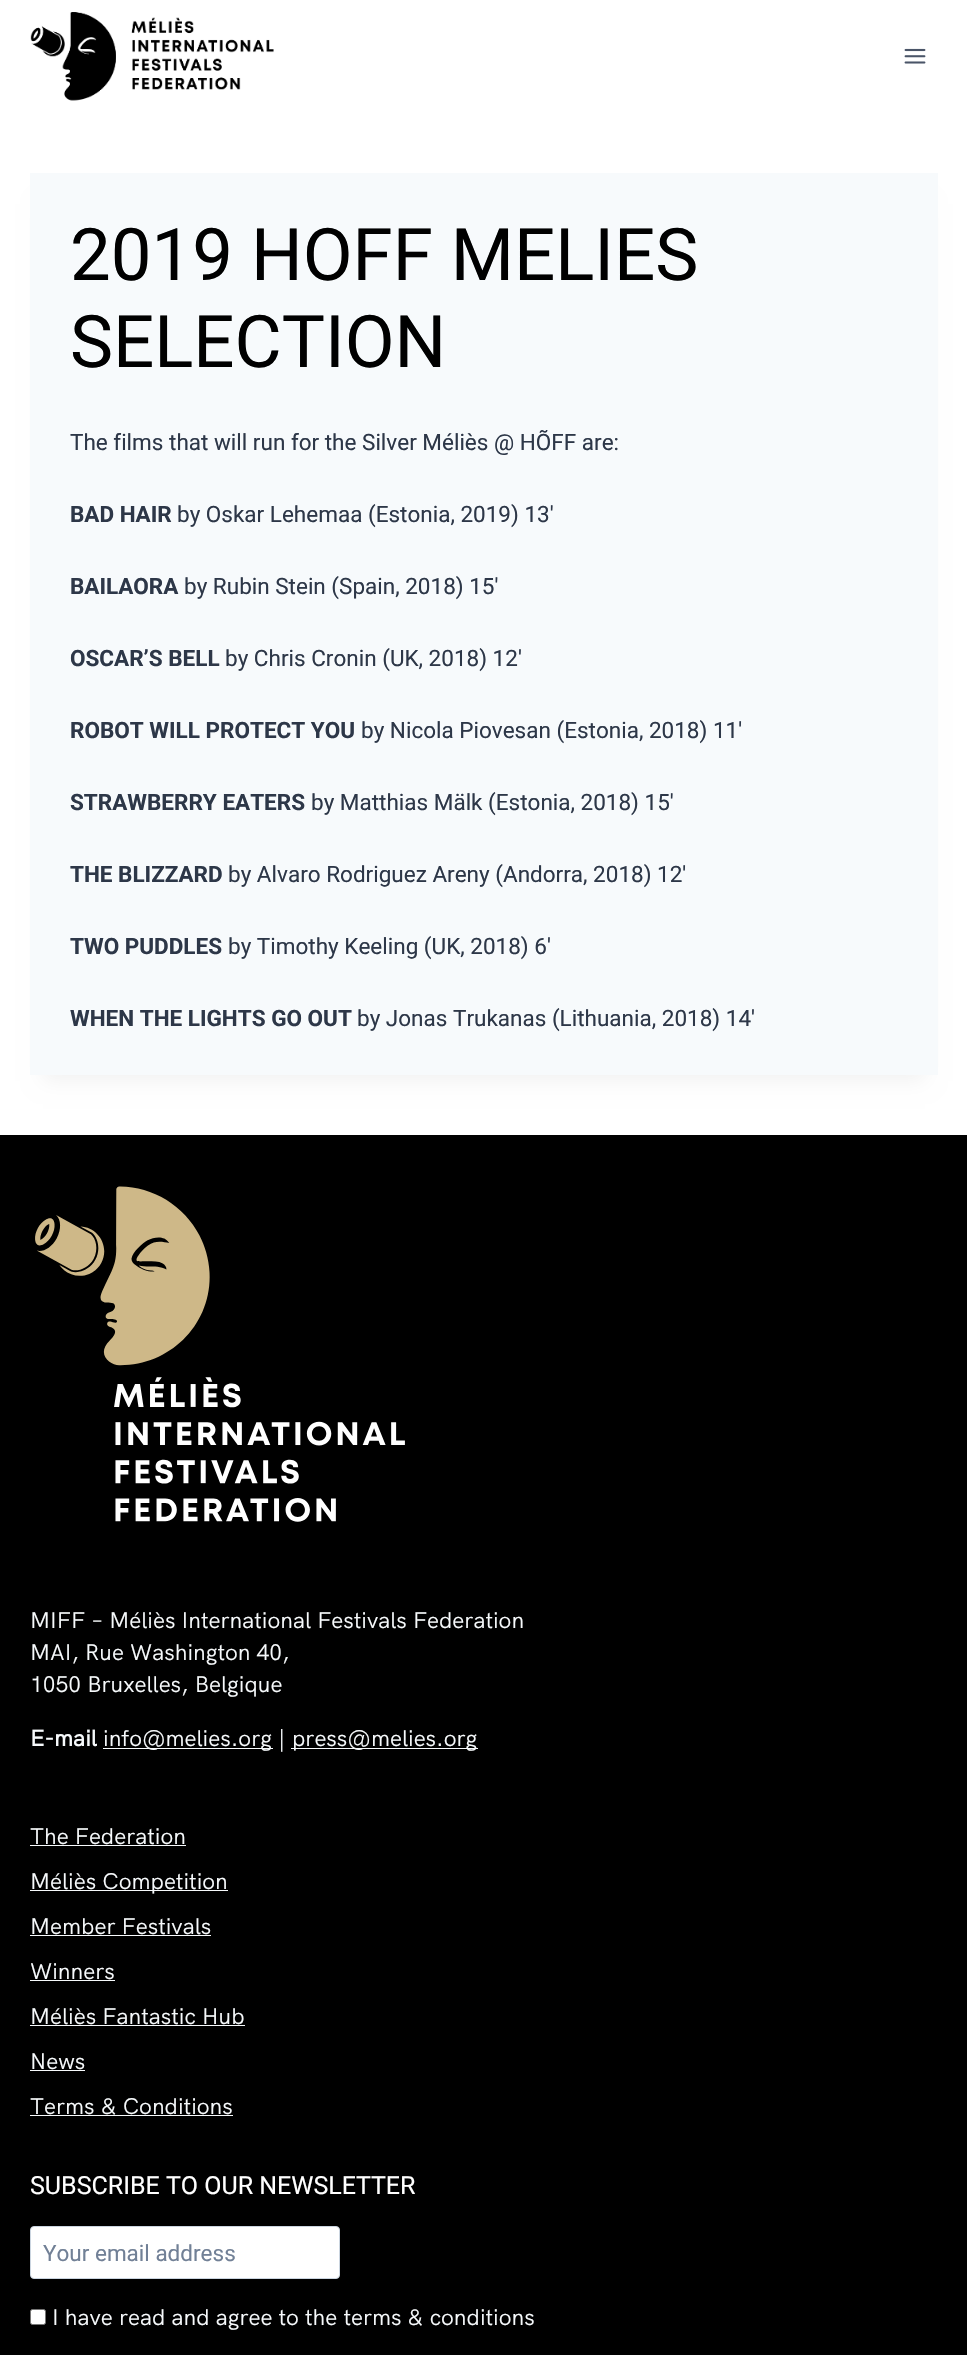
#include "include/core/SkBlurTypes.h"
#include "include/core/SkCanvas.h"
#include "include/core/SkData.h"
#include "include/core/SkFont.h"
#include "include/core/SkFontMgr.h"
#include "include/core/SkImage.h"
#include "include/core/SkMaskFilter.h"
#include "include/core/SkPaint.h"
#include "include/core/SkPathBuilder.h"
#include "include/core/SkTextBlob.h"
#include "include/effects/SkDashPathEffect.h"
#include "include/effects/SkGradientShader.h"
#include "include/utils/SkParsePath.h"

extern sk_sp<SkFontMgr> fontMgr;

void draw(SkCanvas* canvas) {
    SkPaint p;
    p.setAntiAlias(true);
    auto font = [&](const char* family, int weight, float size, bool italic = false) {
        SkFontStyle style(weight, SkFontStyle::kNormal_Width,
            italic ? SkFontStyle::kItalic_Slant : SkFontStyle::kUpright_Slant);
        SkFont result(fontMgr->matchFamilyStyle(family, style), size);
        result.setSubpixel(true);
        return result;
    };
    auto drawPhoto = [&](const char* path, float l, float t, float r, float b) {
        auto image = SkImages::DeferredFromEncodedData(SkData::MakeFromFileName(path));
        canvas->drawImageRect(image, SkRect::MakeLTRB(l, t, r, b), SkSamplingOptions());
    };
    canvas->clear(0xFFFFFFFF);
    drawPhoto("media/1.png", 30, 12, 274, 101);
    drawPhoto("media/2.png", 904, 48, 926, 64);
    p.setColor(0x0D000000);
    p.setMaskFilter(SkMaskFilter::MakeBlur(kNormal_SkBlurStyle, 9.5f));
    canvas->drawRect(SkRect::MakeLTRB(43, 204, 925, 1081), p);
    p.setMaskFilter(nullptr);
    p.setColor(0xFFF7FAFC);
    canvas->drawRect(SkRect::MakeLTRB(30, 173, 938, 1075), p);
    auto font1 = font("Roboto", 400, 72.5f);
    p.setColor(0xFF000000);
    canvas->drawString("2019 HOFF MELIES", 70, 280, font1, p);
    canvas->drawString("SELECTION", 70, 367, font1, p);
    auto font2 = font("Roboto", 400, 22.5f);
    p.setColor(0xFF2D3748);
    canvas->drawString("The films that will run for the Silver Méliès @ HÕFF are:", 70, 450, font2, p);
    auto font3 = font("Roboto", 700, 22.5f);
    canvas->drawString("BAD HAIR", 70, 522, font3, p);
    canvas->drawString("by Oskar Lehemaa (Estonia, 2019) 13′", 177, 522, font2, p);
    canvas->drawString("BAILAORA", 70, 594, font3, p);
    canvas->drawString("by Rubin Stein (Spain, 2018) 15′", 184, 594, font2, p);
    canvas->drawString("OSCAR’S BELL", 70, 666, font3, p);
    canvas->drawString("by Chris Cronin (UK, 2018) 12′", 225, 666, font2, p);
    canvas->drawString("ROBOT WILL PROTECT YOU", 70, 738, font3, p);
    canvas->drawString("by Nicola Piovesan (Estonia, 2018) 11′", 361, 738, font2, p);
    canvas->drawString("STRAWBERRY EATERS", 70, 810, font3, p);
    canvas->drawString("by Matthias Mälk (Estonia, 2018) 15′", 311, 810, font2, p);
    canvas->drawString("THE BLIZZARD", 70, 882, font3, p);
    canvas->drawString("by Alvaro Rodriguez Areny (Andorra, 2018) 12′", 228, 882, font2, p);
    canvas->drawString("TWO PUDDLES", 70, 954, font3, p);
    canvas->drawString("by Timothy Keeling (UK, 2018) 6′", 228, 954, font2, p);
    canvas->drawString("WHEN THE LIGHTS GO OUT", 70, 1026, font3, p);
    canvas->drawString("by Jonas Trukanas (Lithuania, 2018) 14′", 357, 1026, font2, p);
    p.setColor(0xFF000000);
    canvas->drawRect(SkRect::MakeLTRB(0, 1135, 967, 2355), p);
    drawPhoto("media/3.png", 35, 1186, 405, 1522);
    auto font4 = font("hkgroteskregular", 400, 22.5f);
    p.setColor(0xFFF7FAFC);
    {
        const struct { const char* s; float x, y; } items[] = {
            {"MIFF – Méliès International Festivals Federation", 30, 1628},
            {"MAI, Rue Washington 40,", 30, 1660},
            {"1050 Bruxelles, Belgique", 30, 1692},
        };
        for (auto [s, x, y] : items) {
            canvas->drawString(s, x, y, font4, p);
        }
    }
    auto font5 = font("hkgroteskregular", 700, 22.5f);
    canvas->drawString("E-mail", 30, 1746, font5, p);
    canvas->drawRect(SkRect::MakeLTRB(103, 1748, 273, 1749), p);
    canvas->drawString("info@melies.org |", 103, 1746, font4, p);
    canvas->drawRect(SkRect::MakeLTRB(291, 1748, 478, 1749), p);
    canvas->drawString("press@melies.org", 292, 1746, font4, p);
    canvas->drawString("The Federation", 30, 1844, font4, p);
    canvas->drawRect(SkRect::MakeLTRB(30, 1845, 186, 1846), p);
    canvas->drawRect(SkRect::MakeLTRB(30, 1890, 228, 1891), p);
    canvas->drawString("Méliès Competition", 30, 1889, font4, p);
    canvas->drawString("Member Festivals", 30, 1934, font4, p);
    canvas->drawRect(SkRect::MakeLTRB(30, 1935, 211, 1936), p);
    canvas->drawString("Winners", 30, 1979, font4, p);
    canvas->drawRect(SkRect::MakeLTRB(30, 1980, 115, 1981), p);
    canvas->drawString("Méliès Fantastic Hub", 30, 2024, font4, p);
    canvas->drawRect(SkRect::MakeLTRB(30, 2025, 245, 2026), p);
    canvas->drawString("News", 30, 2069, font4, p);
    canvas->drawRect(SkRect::MakeLTRB(30, 2070, 85, 2071), p);
    canvas->drawString("Terms & Conditions", 30, 2114, font4, p);
    canvas->drawRect(SkRect::MakeLTRB(30, 2115, 233, 2116), p);
    auto font6 = font("Roboto", 400, 25);
    p.setColor(0xFFFFFFFF);
    canvas->drawString("SUBSCRIBE TO OUR NEWSLETTER", 30, 2194, font6, p);
    canvas->drawRoundRect(SkRect::MakeLTRB(30.5f, 2226.5f, 339.5f, 2278.5f), 3.5f, 3.5f, p);
    p.setStyle(SkPaint::kStroke_Style);
    p.setStrokeWidth(1);
    p.setColor(0xFFCBD5E0);
    canvas->drawRoundRect(SkRect::MakeLTRB(30.5f, 2226.5f, 339.5f, 2278.5f), 3.5f, 3.5f, p);
    p.setStyle(SkPaint::kFill_Style);
    p.setColor(0xFF718096);
    canvas->drawString("Your email address", 43, 2261, font2, p);
    p.setColor(0xFFFFFFFF);
    canvas->drawRoundRect(SkRect::MakeLTRB(30.5f, 2309.5f, 45.5f, 2324.5f), 2, 2, p);
    p.setStyle(SkPaint::kStroke_Style);
    p.setColor(0xFF767676);
    canvas->drawRoundRect(SkRect::MakeLTRB(30.5f, 2309.5f, 45.5f, 2324.5f), 2, 2, p);
    p.setStyle(SkPaint::kFill_Style);
    p.setColor(0xFFF7FAFC);
    canvas->drawString("I have read and agree to the terms & conditions", 52, 2325, font4, p);
}
